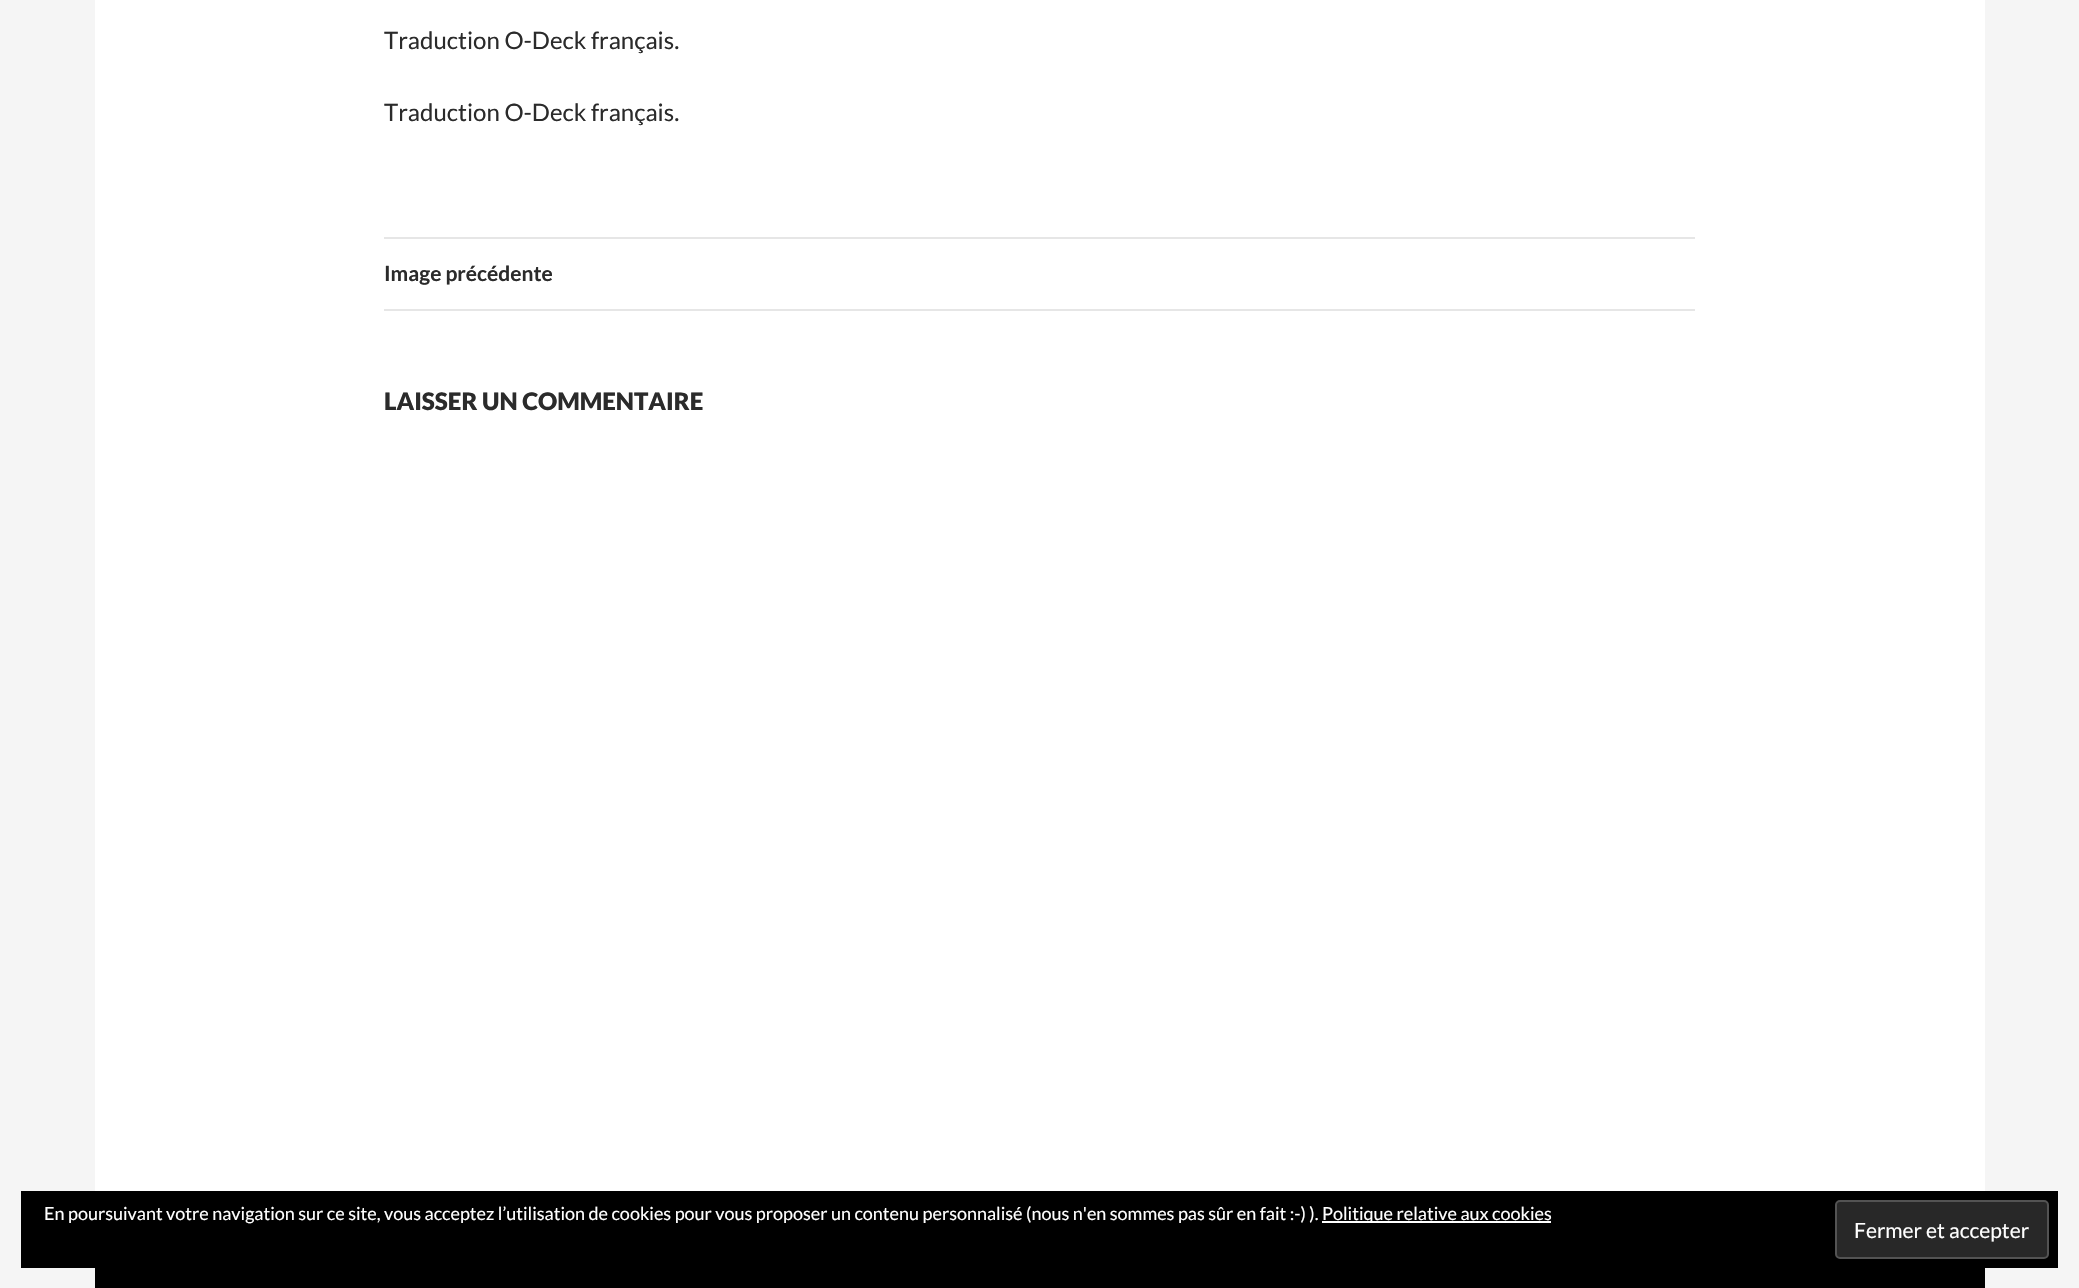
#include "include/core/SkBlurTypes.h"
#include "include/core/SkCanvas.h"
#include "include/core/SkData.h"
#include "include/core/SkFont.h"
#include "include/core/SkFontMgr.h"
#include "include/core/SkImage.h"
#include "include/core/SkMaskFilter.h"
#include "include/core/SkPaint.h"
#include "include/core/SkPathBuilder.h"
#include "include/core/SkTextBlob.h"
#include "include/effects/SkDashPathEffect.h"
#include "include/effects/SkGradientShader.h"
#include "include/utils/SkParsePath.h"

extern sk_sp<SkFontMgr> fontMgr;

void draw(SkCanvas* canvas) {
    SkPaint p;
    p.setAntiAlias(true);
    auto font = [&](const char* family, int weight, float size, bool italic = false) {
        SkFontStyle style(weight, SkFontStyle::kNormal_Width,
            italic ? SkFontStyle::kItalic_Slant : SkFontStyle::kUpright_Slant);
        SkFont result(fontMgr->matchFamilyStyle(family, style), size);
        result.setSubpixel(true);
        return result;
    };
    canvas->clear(0xFFF5F5F5);
    p.setColor(0xFFFFFFFF);
    canvas->drawRect(SkRect::MakeLTRB(95, 0, 1985, 1191), p);
    auto font1 = font("Lato", 400, 24);
    p.setColor(0xFF2B2B2B);
    canvas->drawString("Traduction O-Deck français.", 384, 49, font1, p);
    canvas->drawString("Traduction O-Deck français.", 384, 121, font1, p);
    p.setColor(0xFFE6E6E6);
    canvas->drawRect(SkRect::MakeLTRB(384, 237, 1695, 239), p);
    canvas->drawRect(SkRect::MakeLTRB(384, 309, 1695, 311), p);
    auto font2 = font("Lato", 700, 21);
    p.setColor(0xFF2B2B2B);
    canvas->drawString("Image précédente", 384, 281, font2, p);
    auto font3 = font("Lato", 900, 24);
    canvas->drawString("LAISSER UN COMMENTAIRE", 384, 410, font3, p);
    p.setColor(0xFF000000);
    canvas->drawRect(SkRect::MakeLTRB(95, 1268, 1985, 1288), p);
    canvas->drawRect(SkRect::MakeLTRB(21, 1191, 2058, 1268), p);
    auto font4 = font("Lato", 400, 18);
    p.setColor(0xFFFFFFFF);
    canvas->drawString("En poursuivant votre navigation sur ce site, vous acceptez l’utilisation de cookies pour vous proposer un contenu personnalisé (nous n'en sommes pas sûr en fait :-) ).", 44, 1220, font4, p);
    canvas->drawRect(SkRect::MakeLTRB(1322, 1221, 1551, 1223), p);
    canvas->drawString("Politique relative aux cookies", 1322, 1220, font4, p);
    p.setColor(0xFF282828);
    canvas->drawRoundRect(SkRect::MakeLTRB(1836, 1201, 2048, 1258), 4, 4, p);
    p.setStyle(SkPaint::kStroke_Style);
    p.setStrokeWidth(2);
    p.setColor(0xFF535353);
    canvas->drawRoundRect(SkRect::MakeLTRB(1836, 1201, 2048, 1258), 4, 4, p);
    auto font5 = font("Lato", 400, 21);
    p.setStyle(SkPaint::kFill_Style);
    p.setColor(0xFFFFFFFF);
    canvas->drawString("Fermer et accepter", 1854, 1238, font5, p);
}
